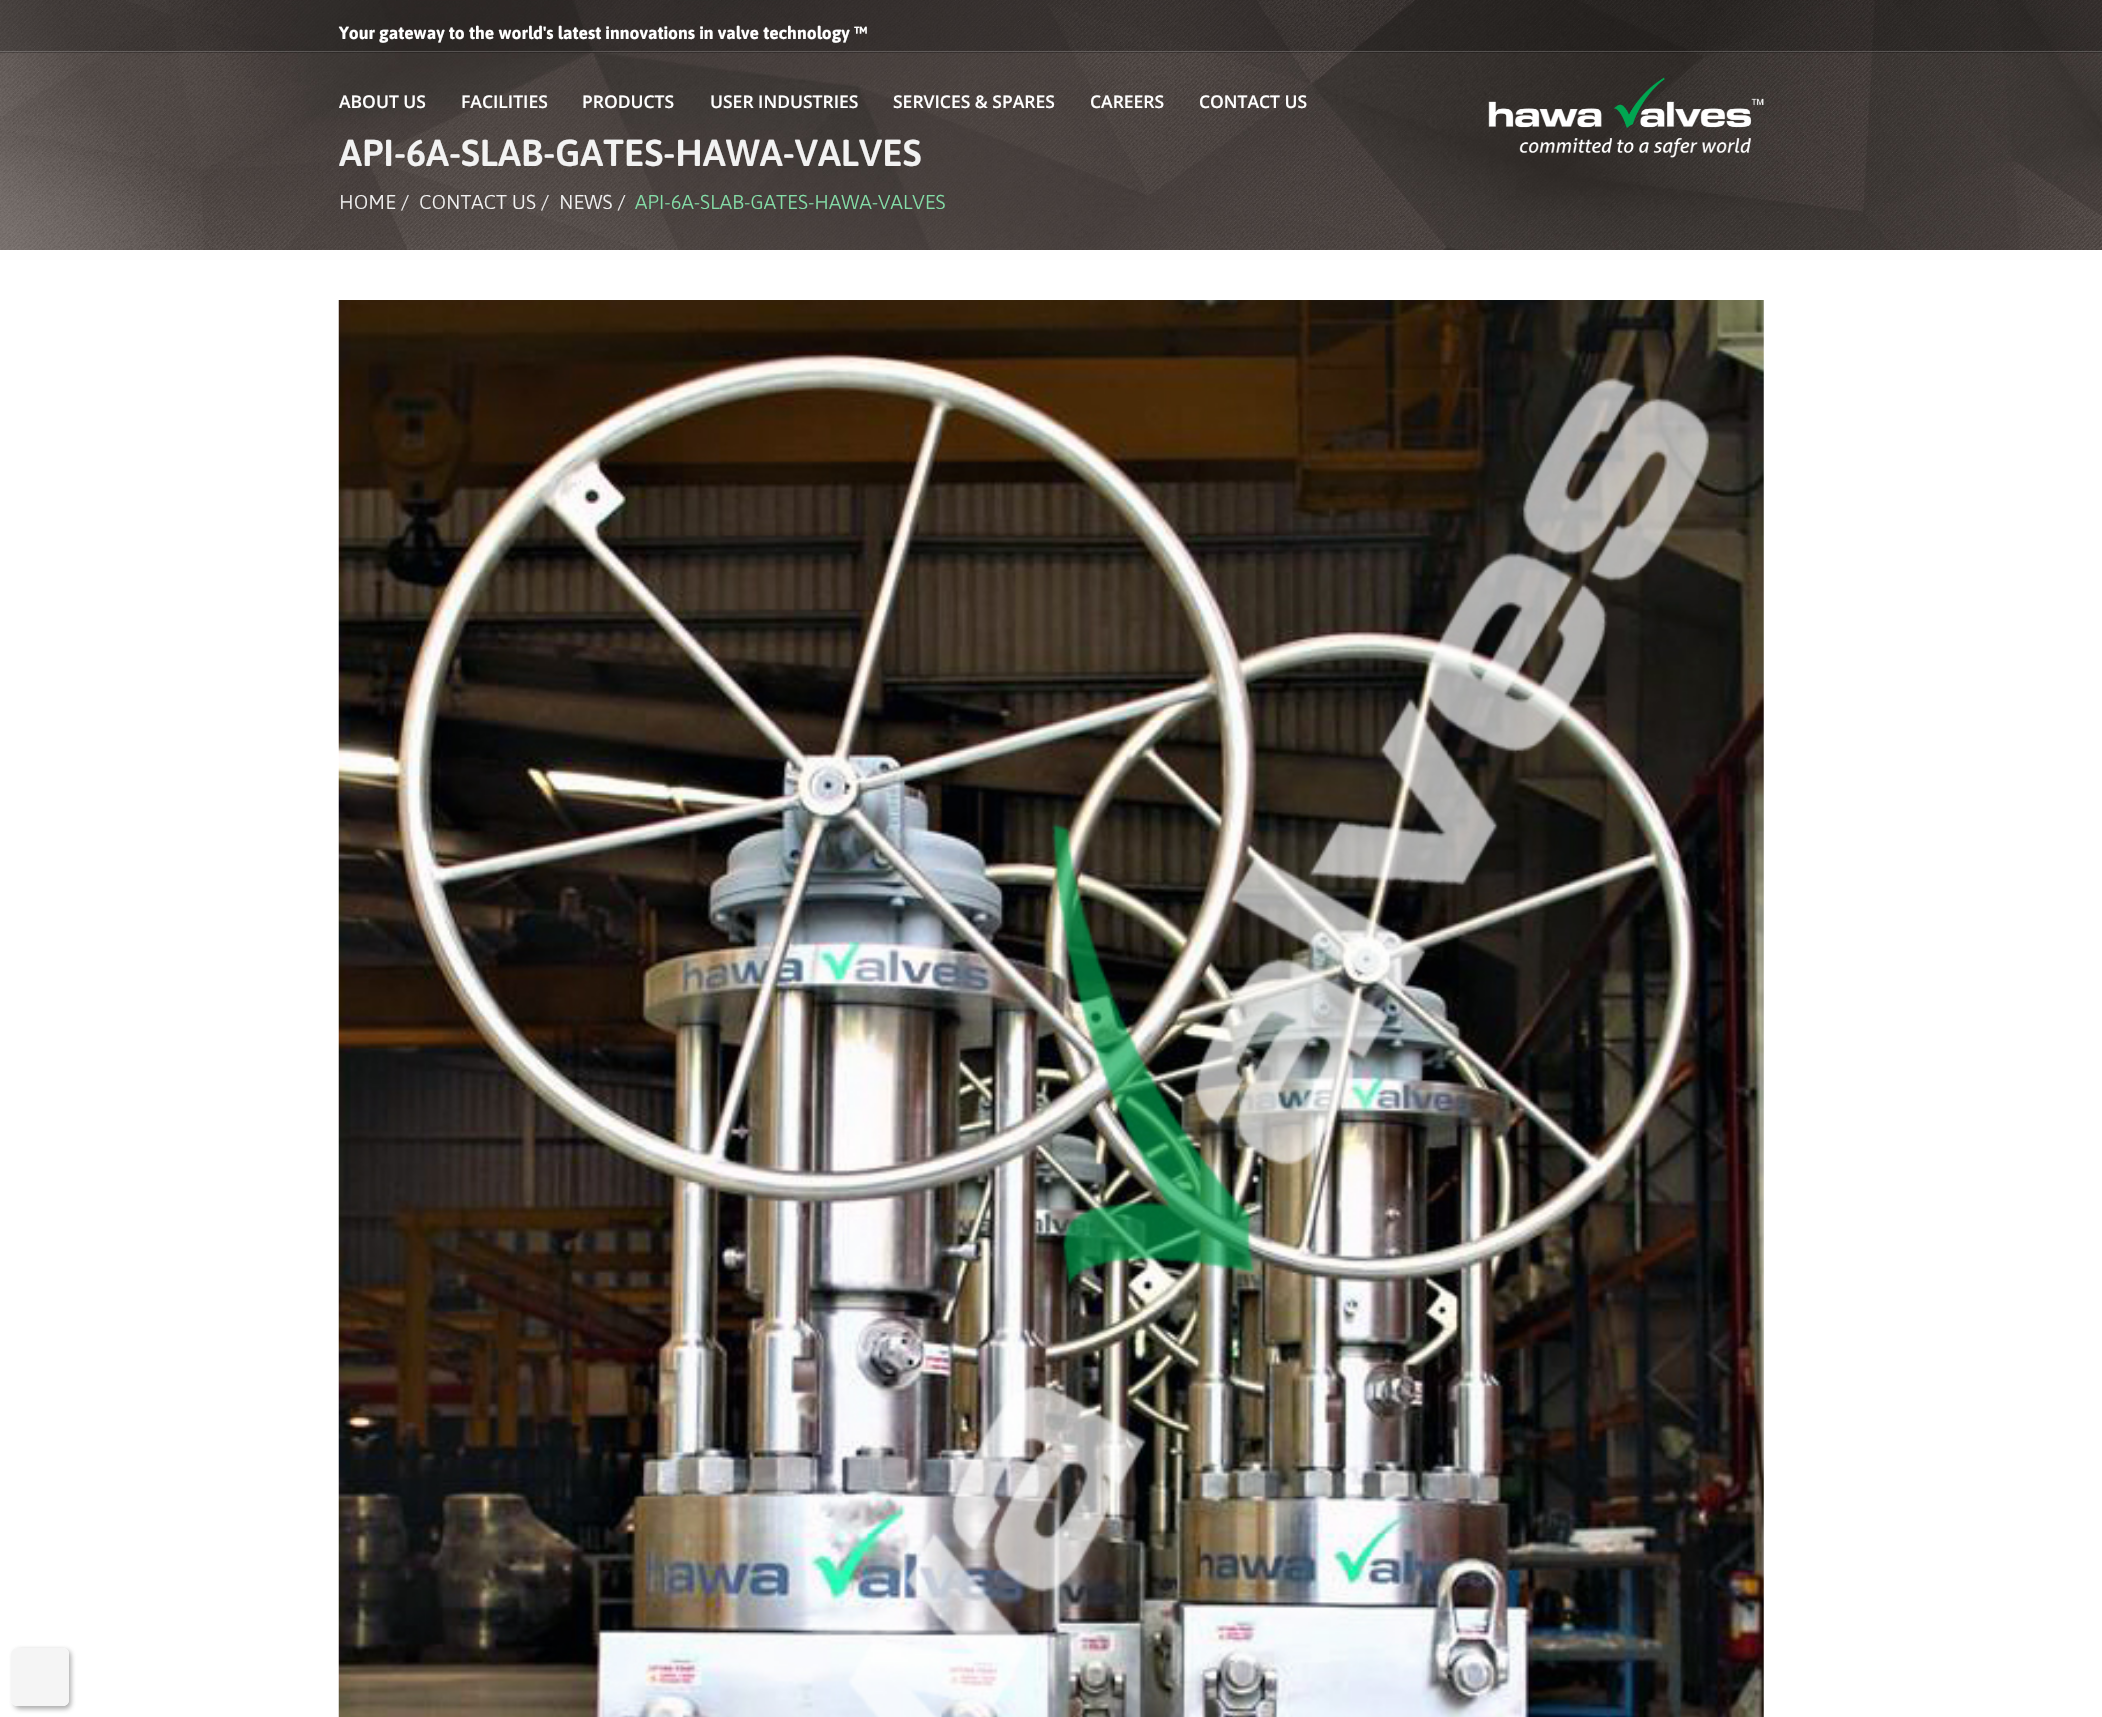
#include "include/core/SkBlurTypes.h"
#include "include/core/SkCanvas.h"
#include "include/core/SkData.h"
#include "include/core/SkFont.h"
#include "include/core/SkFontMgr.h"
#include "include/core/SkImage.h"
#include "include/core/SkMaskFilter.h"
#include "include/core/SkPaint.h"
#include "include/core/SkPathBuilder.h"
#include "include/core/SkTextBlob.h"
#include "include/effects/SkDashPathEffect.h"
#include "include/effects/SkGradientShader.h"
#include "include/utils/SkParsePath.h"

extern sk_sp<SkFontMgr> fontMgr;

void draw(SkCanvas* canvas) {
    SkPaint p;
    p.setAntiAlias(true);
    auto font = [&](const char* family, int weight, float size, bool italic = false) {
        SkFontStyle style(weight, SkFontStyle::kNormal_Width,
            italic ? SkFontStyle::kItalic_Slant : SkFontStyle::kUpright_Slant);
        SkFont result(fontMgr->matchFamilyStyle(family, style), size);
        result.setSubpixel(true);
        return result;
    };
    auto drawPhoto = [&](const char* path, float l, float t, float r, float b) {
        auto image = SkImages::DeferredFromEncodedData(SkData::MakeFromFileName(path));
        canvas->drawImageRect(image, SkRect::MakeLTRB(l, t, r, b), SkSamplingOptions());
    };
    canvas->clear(0xFFFFFFFF);
    drawPhoto("media/2.png", 0, 0, 2102, 250);
    p.setColor(0x40000000);
    canvas->drawRect(SkRect::MakeLTRB(0, 0, 2102, 53), p);
    p.setColor(0x33FFFFFF);
    canvas->drawRect(SkRect::MakeLTRB(0, 51, 2102, 52), p);
    auto font1 = font("Asap", 700, 17.5f);
    p.setColor(0xFFFFFFFF);
    canvas->drawString("Your gateway to the world's latest innovations in valve technology ™", 339, 39, font1, p);
    auto font2 = font("Open Sans", 600, 17.5f);
    {
        const struct { const char* s; float x, y; } items[] = {
            {"ABOUT US", 339, 108},
            {"FACILITIES", 461, 108},
            {"PRODUCTS", 582, 108},
            {"USER INDUSTRIES", 710, 108},
            {"SERVICES & SPARES", 893, 108},
            {"CAREERS", 1090, 108},
            {"CONTACT US", 1199, 108},
        };
        for (auto [s, x, y] : items) {
            canvas->drawString(s, x, y, font2, p);
        }
    }
    drawPhoto("media/1.png", 1488, 77, 1764, 158);
    auto font3 = font("Asap", 600, 37.5f);
    p.setColor(0xFFF2F2F2);
    canvas->drawString("API-6A-SLAB-GATES-HAWA-VALVES", 339, 166, font3, p);
    auto font4 = font("Asap", 300, 20);
    {
        const struct { const char* s; float x, y; } items[] = {
            {"HOME /", 339, 209},
            {"CONTACT US /", 419, 209},
            {"NEWS /", 559, 209},
        };
        for (auto [s, x, y] : items) {
            canvas->drawString(s, x, y, font4, p);
        }
    }
    p.setColor(0xFF84DEA8);
    canvas->drawString("API-6A-SLAB-GATES-HAWA-VALVES", 635, 209, font4, p);
    canvas->save();
    canvas->clipPath(SkPathBuilder(SkPathFillType::kEvenOdd).moveTo(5, 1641).lineTo(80, 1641).lineTo(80, 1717).lineTo(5, 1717).close().moveTo(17, 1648).lineTo(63, 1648).cubicTo(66.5f, 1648, 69, 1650.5f, 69, 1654).lineTo(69, 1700).cubicTo(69, 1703.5f, 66.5f, 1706, 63, 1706).lineTo(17, 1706).cubicTo(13.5f, 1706, 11, 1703.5f, 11, 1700).lineTo(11, 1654).cubicTo(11, 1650.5f, 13.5f, 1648, 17, 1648).close().detach(), true);
    p.setColor(0x784D4D4D);
    p.setMaskFilter(SkMaskFilter::MakeBlur(kNormal_SkBlurStyle, 2.5f));
    canvas->drawRoundRect(SkRect::MakeLTRB(14, 1650, 71, 1709), 6, 6, p);
    p.setMaskFilter(nullptr);
    canvas->restore();
    p.setColor(0xFCF5F5F5);
    canvas->drawRoundRect(SkRect::MakeLTRB(11, 1648, 69, 1706), 6, 6, p);
    drawPhoto("media/3.png", 338, 300, 1764, 1717);
}
